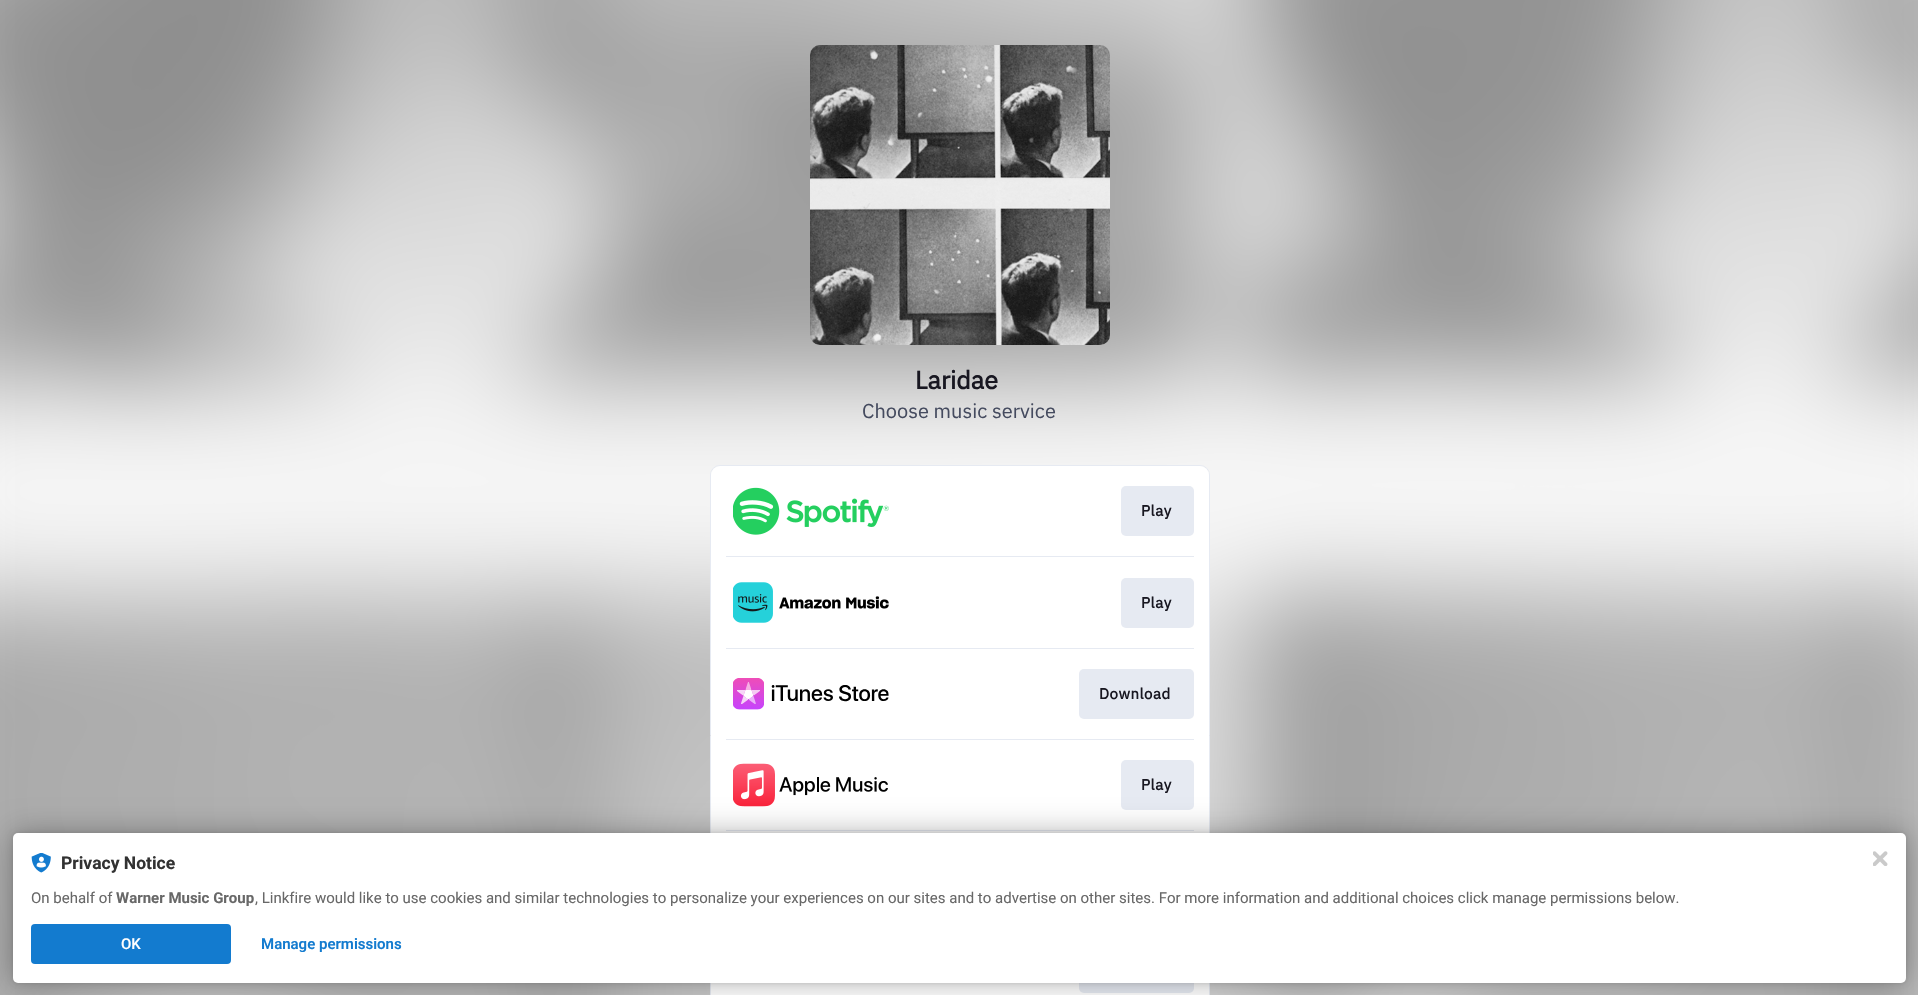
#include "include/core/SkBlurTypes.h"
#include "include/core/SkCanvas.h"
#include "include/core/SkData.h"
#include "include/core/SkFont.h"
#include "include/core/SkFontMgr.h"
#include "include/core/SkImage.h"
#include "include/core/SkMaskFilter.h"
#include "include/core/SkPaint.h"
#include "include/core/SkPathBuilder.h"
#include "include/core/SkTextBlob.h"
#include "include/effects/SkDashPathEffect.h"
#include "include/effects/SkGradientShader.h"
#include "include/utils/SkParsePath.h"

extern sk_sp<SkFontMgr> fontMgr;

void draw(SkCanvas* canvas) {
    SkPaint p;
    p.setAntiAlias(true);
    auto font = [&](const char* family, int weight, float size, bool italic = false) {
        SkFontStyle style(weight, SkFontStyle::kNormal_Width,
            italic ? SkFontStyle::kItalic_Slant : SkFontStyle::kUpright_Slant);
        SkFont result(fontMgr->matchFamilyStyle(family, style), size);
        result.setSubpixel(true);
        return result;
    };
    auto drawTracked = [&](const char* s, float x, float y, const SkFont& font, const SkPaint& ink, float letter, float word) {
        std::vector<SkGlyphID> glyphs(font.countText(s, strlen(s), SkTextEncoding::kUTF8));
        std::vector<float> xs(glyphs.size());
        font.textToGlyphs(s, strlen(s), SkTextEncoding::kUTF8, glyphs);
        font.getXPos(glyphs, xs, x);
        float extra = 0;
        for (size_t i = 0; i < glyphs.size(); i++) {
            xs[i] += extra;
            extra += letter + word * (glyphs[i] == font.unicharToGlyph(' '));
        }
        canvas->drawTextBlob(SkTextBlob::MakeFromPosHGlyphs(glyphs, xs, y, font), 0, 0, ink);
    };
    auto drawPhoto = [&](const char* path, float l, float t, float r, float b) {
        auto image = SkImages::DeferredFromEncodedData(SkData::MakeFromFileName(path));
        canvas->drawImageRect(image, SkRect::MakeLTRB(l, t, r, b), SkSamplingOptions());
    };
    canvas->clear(0xFFFFFFFF);
    drawPhoto("media/1.png", 0, 0, 1918, 995);
    drawPhoto("media/2.png", 810, 45, 1110, 345);
    auto font1 = font("IBM Plex Sans", 700, 25);
    p.setColor(0xFF181721);
    canvas->drawString("Laridae", 915, 389, font1, p);
    auto font2 = font("IBM Plex Sans", 400, 20);
    p.setColor(0xFF454B5F);
    canvas->drawString("Choose music service", 862, 418, font2, p);
    p.setStyle(SkPaint::kStroke_Style);
    p.setStrokeWidth(1);
    p.setColor(0xFFE6EAF2);
    canvas->drawRoundRect(SkRect::MakeLTRB(710.5f, 465.5f, 1209.5f, 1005.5f), 9.5f, 9.5f, p);
    p.setStyle(SkPaint::kFill_Style);
    p.setColor(0xFFFFFFFF);
    canvas->drawRoundRect(SkRect::MakeLTRB(711, 466, 1209, 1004), 9, 9, p);
    drawPhoto("media/3.png", 733, 487, 889, 535);
    p.setColor(0xFFE6EAF2);
    canvas->drawRoundRect(SkRect::MakeLTRB(1121, 486, 1194, 536), 5, 5, p);
    auto font3 = font("IBM Plex Sans", 700, 15);
    p.setColor(0xFF181721);
    drawTracked("Play", 1141, 516, font3, p, 0.5f, 0);
    p.setColor(0xFFE6EAF2);
    canvas->drawRect(SkRect::MakeLTRB(726, 556, 1194, 557), p);
    drawPhoto("media/4.png", 733, 582, 889, 623);
    canvas->drawRoundRect(SkRect::MakeLTRB(1121, 578, 1194, 628), 5, 5, p);
    p.setColor(0xFF181721);
    drawTracked("Play", 1141, 608, font3, p, 0.5f, 0);
    p.setColor(0xFFE6EAF2);
    canvas->drawRect(SkRect::MakeLTRB(726, 648, 1194, 649), p);
    drawPhoto("media/5.png", 733, 678, 889, 710);
    canvas->drawRoundRect(SkRect::MakeLTRB(1079, 669, 1194, 719), 5, 5, p);
    p.setColor(0xFF181721);
    drawTracked("Download", 1099, 699, font3, p, 0.5f, 0);
    p.setColor(0xFFE6EAF2);
    canvas->drawRect(SkRect::MakeLTRB(726, 739, 1194, 740), p);
    drawPhoto("media/6.png", 733, 763, 888, 807);
    canvas->drawRoundRect(SkRect::MakeLTRB(1121, 760, 1194, 810), 5, 5, p);
    p.setColor(0xFF181721);
    drawTracked("Play", 1141, 790, font3, p, 0.5f, 0);
    p.setColor(0xFFE6EAF2);
    canvas->drawRect(SkRect::MakeLTRB(726, 830, 1194, 831), p);
    canvas->drawRoundRect(SkRect::MakeLTRB(1079, 943, 1194, 993), 5, 5, p);
    p.setColor(0x1F000000);
    p.setMaskFilter(SkMaskFilter::MakeBlur(kNormal_SkBlurStyle, 2.5f));
    canvas->drawRoundRect(SkRect::MakeLTRB(13, 833, 1906, 983), 5, 5, p);
    p.setMaskFilter(nullptr);
    p.setColor(0x4D000000);
    p.setMaskFilter(SkMaskFilter::MakeBlur(kNormal_SkBlurStyle, 15));
    canvas->drawRoundRect(SkRect::MakeLTRB(13, 833, 1906, 983), 5, 5, p);
    p.setMaskFilter(nullptr);
    p.setColor(0xFFFFFFFF);
    canvas->drawRoundRect(SkRect::MakeLTRB(13, 833, 1906, 983), 5, 5, p);
    drawPhoto("media/7.png", 31, 853, 51, 873);
    auto font4 = font("Roboto", 700, 17.5f);
    p.setColor(0xFF323232);
    canvas->drawString("Privacy Notice", 61, 869, font4, p);
    auto font5 = font("Roboto", 400, 15);
    p.setColor(0xFF686868);
    canvas->drawString("On behalf of", 31, 903, font5, p);
    auto font6 = font("Roboto", 700, 15);
    canvas->drawString("Warner Music Group", 116, 903, font6, p);
    canvas->drawString(", Linkfire would like to use cookies and similar technologies to personalize your experiences on our sites and to advertise on other sites. For more information and additional choices click manage permissions below.", 255, 903, font5, p);
    p.setColor(0xFF137BCF);
    canvas->drawRoundRect(SkRect::MakeLTRB(31, 924, 231, 964), 4, 4, p);
    auto font7 = font("Roboto", 500, 15);
    p.setColor(0xFFFFFFFF);
    canvas->drawString("OK", 121, 949, font7, p);
    auto font8 = font("Roboto", 600, 15);
    p.setColor(0xFF137BCF);
    canvas->drawString("Manage permissions", 261, 949, font8, p);
    drawPhoto("media/8.png", 1873, 851, 1888, 866);
}
